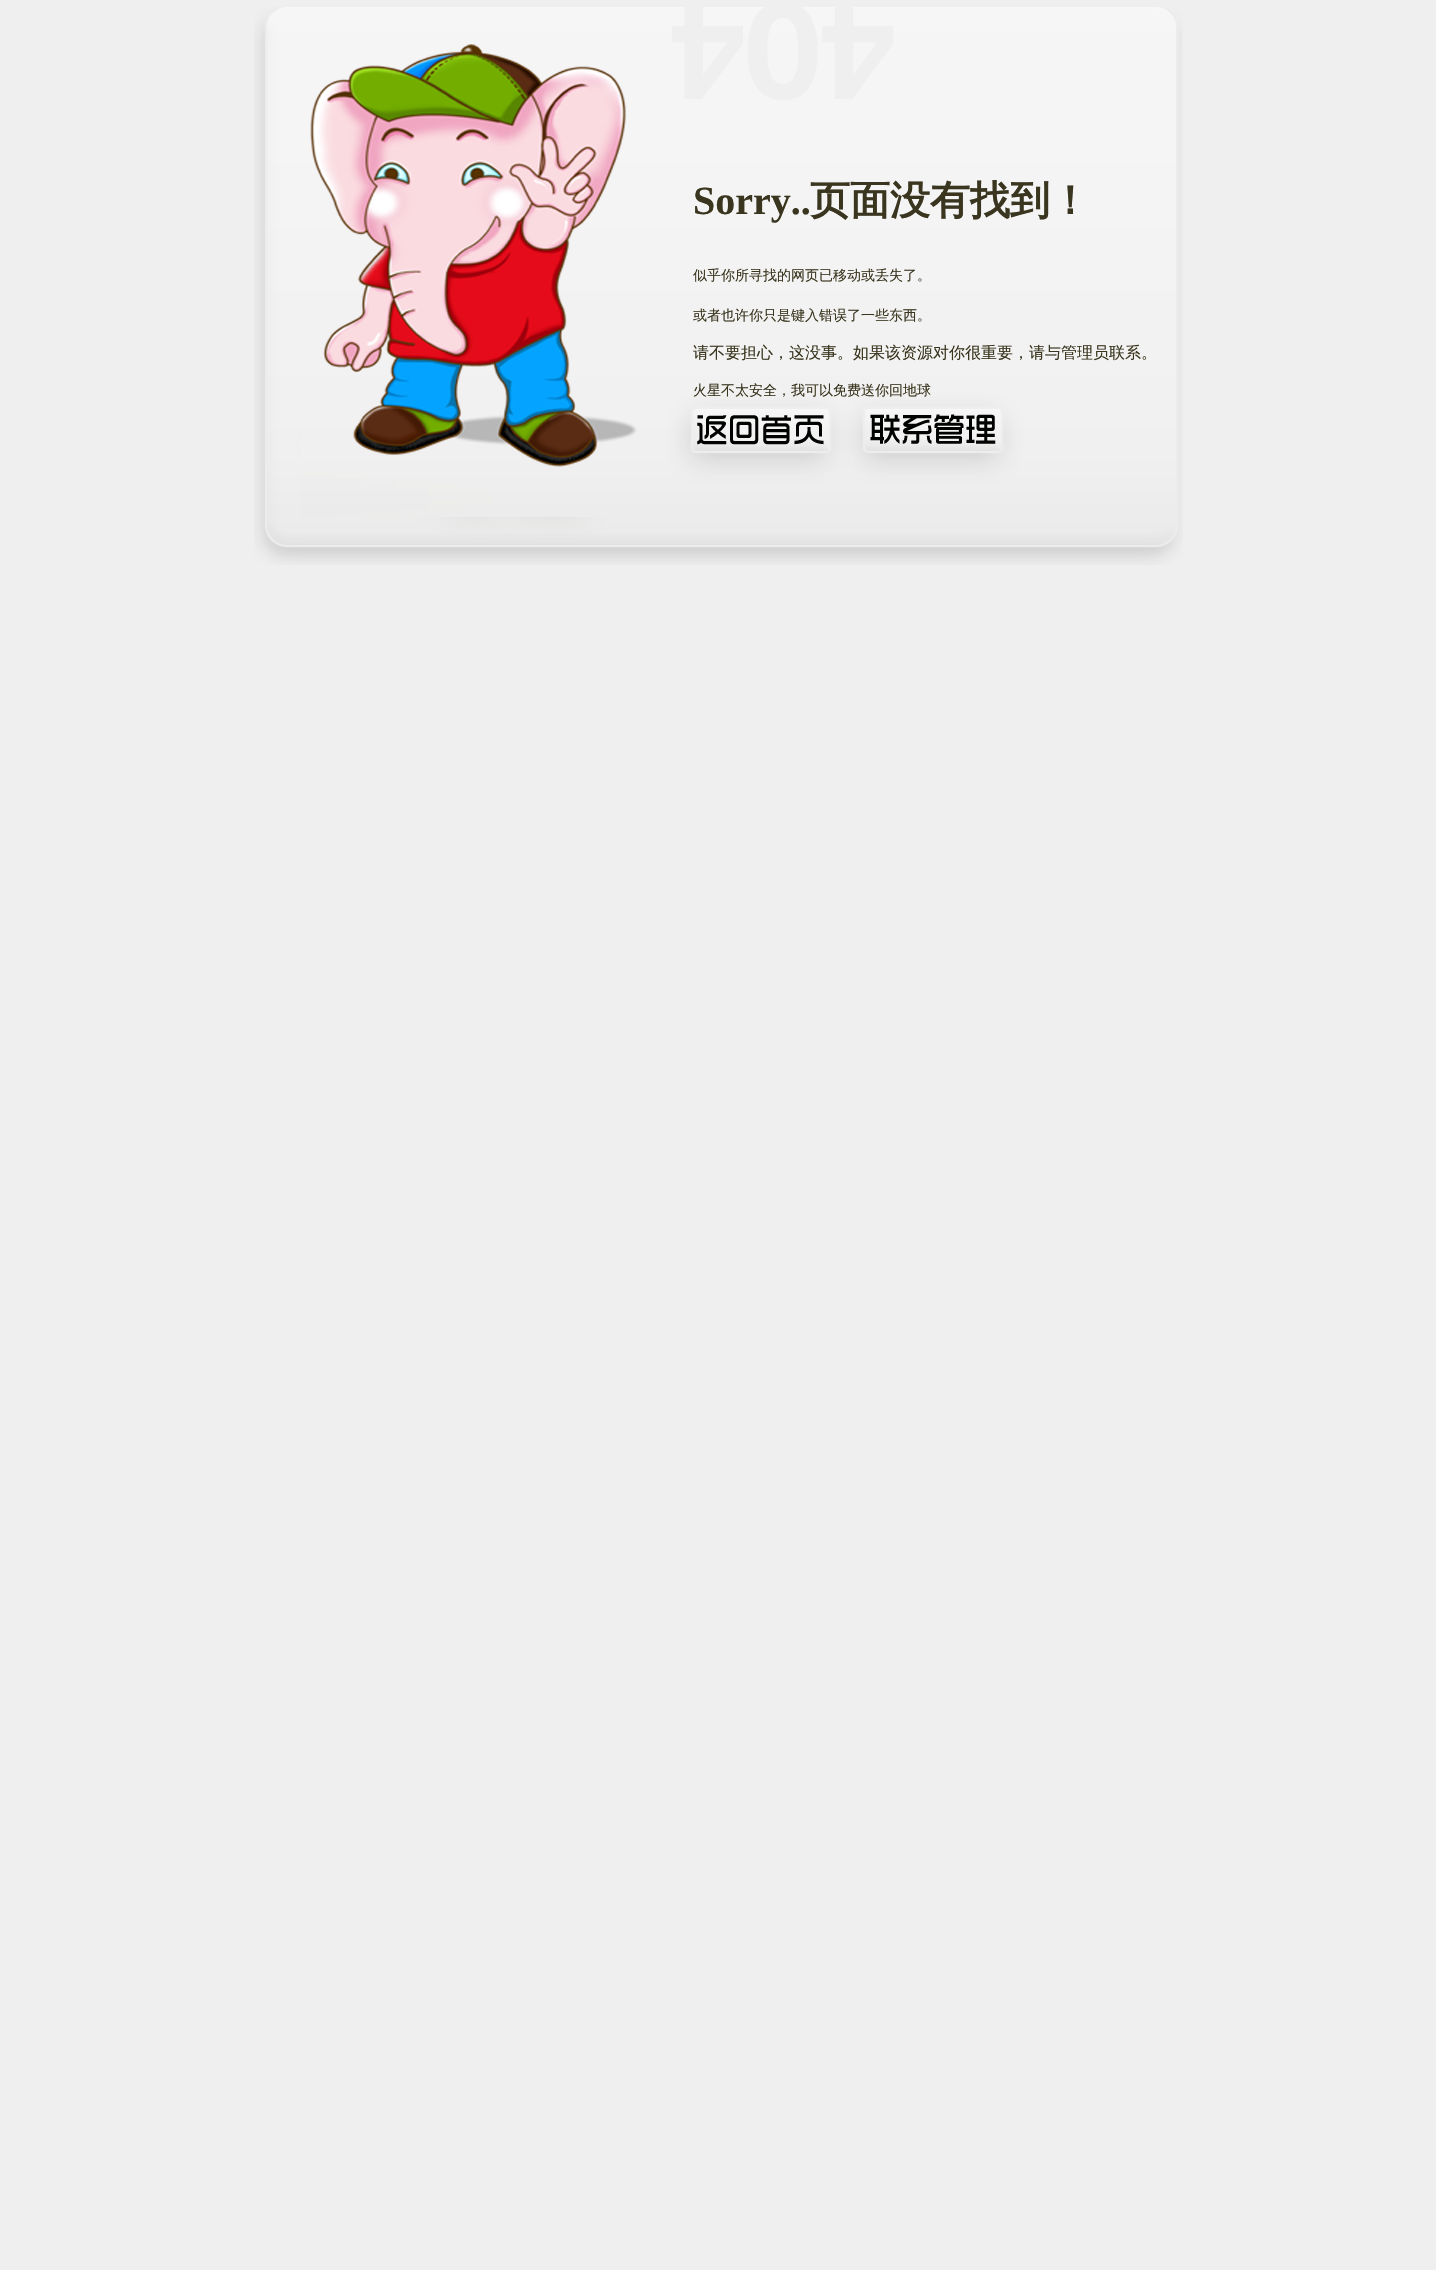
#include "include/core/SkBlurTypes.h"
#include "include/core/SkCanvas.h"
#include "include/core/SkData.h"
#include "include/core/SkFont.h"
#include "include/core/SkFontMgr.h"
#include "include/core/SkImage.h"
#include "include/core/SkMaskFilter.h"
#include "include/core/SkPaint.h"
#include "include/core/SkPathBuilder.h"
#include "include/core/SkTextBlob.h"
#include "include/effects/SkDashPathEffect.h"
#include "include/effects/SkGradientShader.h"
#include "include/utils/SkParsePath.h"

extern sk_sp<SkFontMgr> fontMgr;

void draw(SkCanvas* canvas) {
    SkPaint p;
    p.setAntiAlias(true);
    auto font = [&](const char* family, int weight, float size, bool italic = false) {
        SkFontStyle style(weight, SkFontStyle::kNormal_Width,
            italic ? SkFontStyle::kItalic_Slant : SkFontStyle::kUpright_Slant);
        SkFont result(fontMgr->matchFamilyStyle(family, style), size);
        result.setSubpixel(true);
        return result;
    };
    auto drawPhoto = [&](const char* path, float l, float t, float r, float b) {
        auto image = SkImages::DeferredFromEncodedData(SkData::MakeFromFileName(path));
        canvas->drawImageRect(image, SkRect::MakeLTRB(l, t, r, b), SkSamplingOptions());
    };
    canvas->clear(0xFFEFEFEF);
    drawPhoto("media/1.png", 254, 7, 1183, 565);
    auto font1 = font("Liberation Serif", 700, 40);
    p.setColor(0xFF39351E);
    canvas->drawString("Sorry..", 693, 214, font1, p);
    auto font2 = font("WenQuanYi Zen Hei", 700, 40);
    canvas->drawString("页面没有找到！", 810, 214, font2, p);
    auto font3 = font("WenQuanYi Zen Hei", 500, 14);
    canvas->drawString("似乎你所寻找的网页已移动或丢失了。", 693, 280, font3, p);
    canvas->drawString("或者也许你只是键入错误了一些东西。", 693, 320, font3, p);
    auto font4 = font("WenQuanYi Zen Hei", 500, 16);
    canvas->drawString("请不要担心，这没事。如果该资源对你很重要，请与管理员联系。", 693, 358, font4, p);
    canvas->drawString("火星不太安全，我可以免费送你回地球", 693, 395, font3, p);
}
